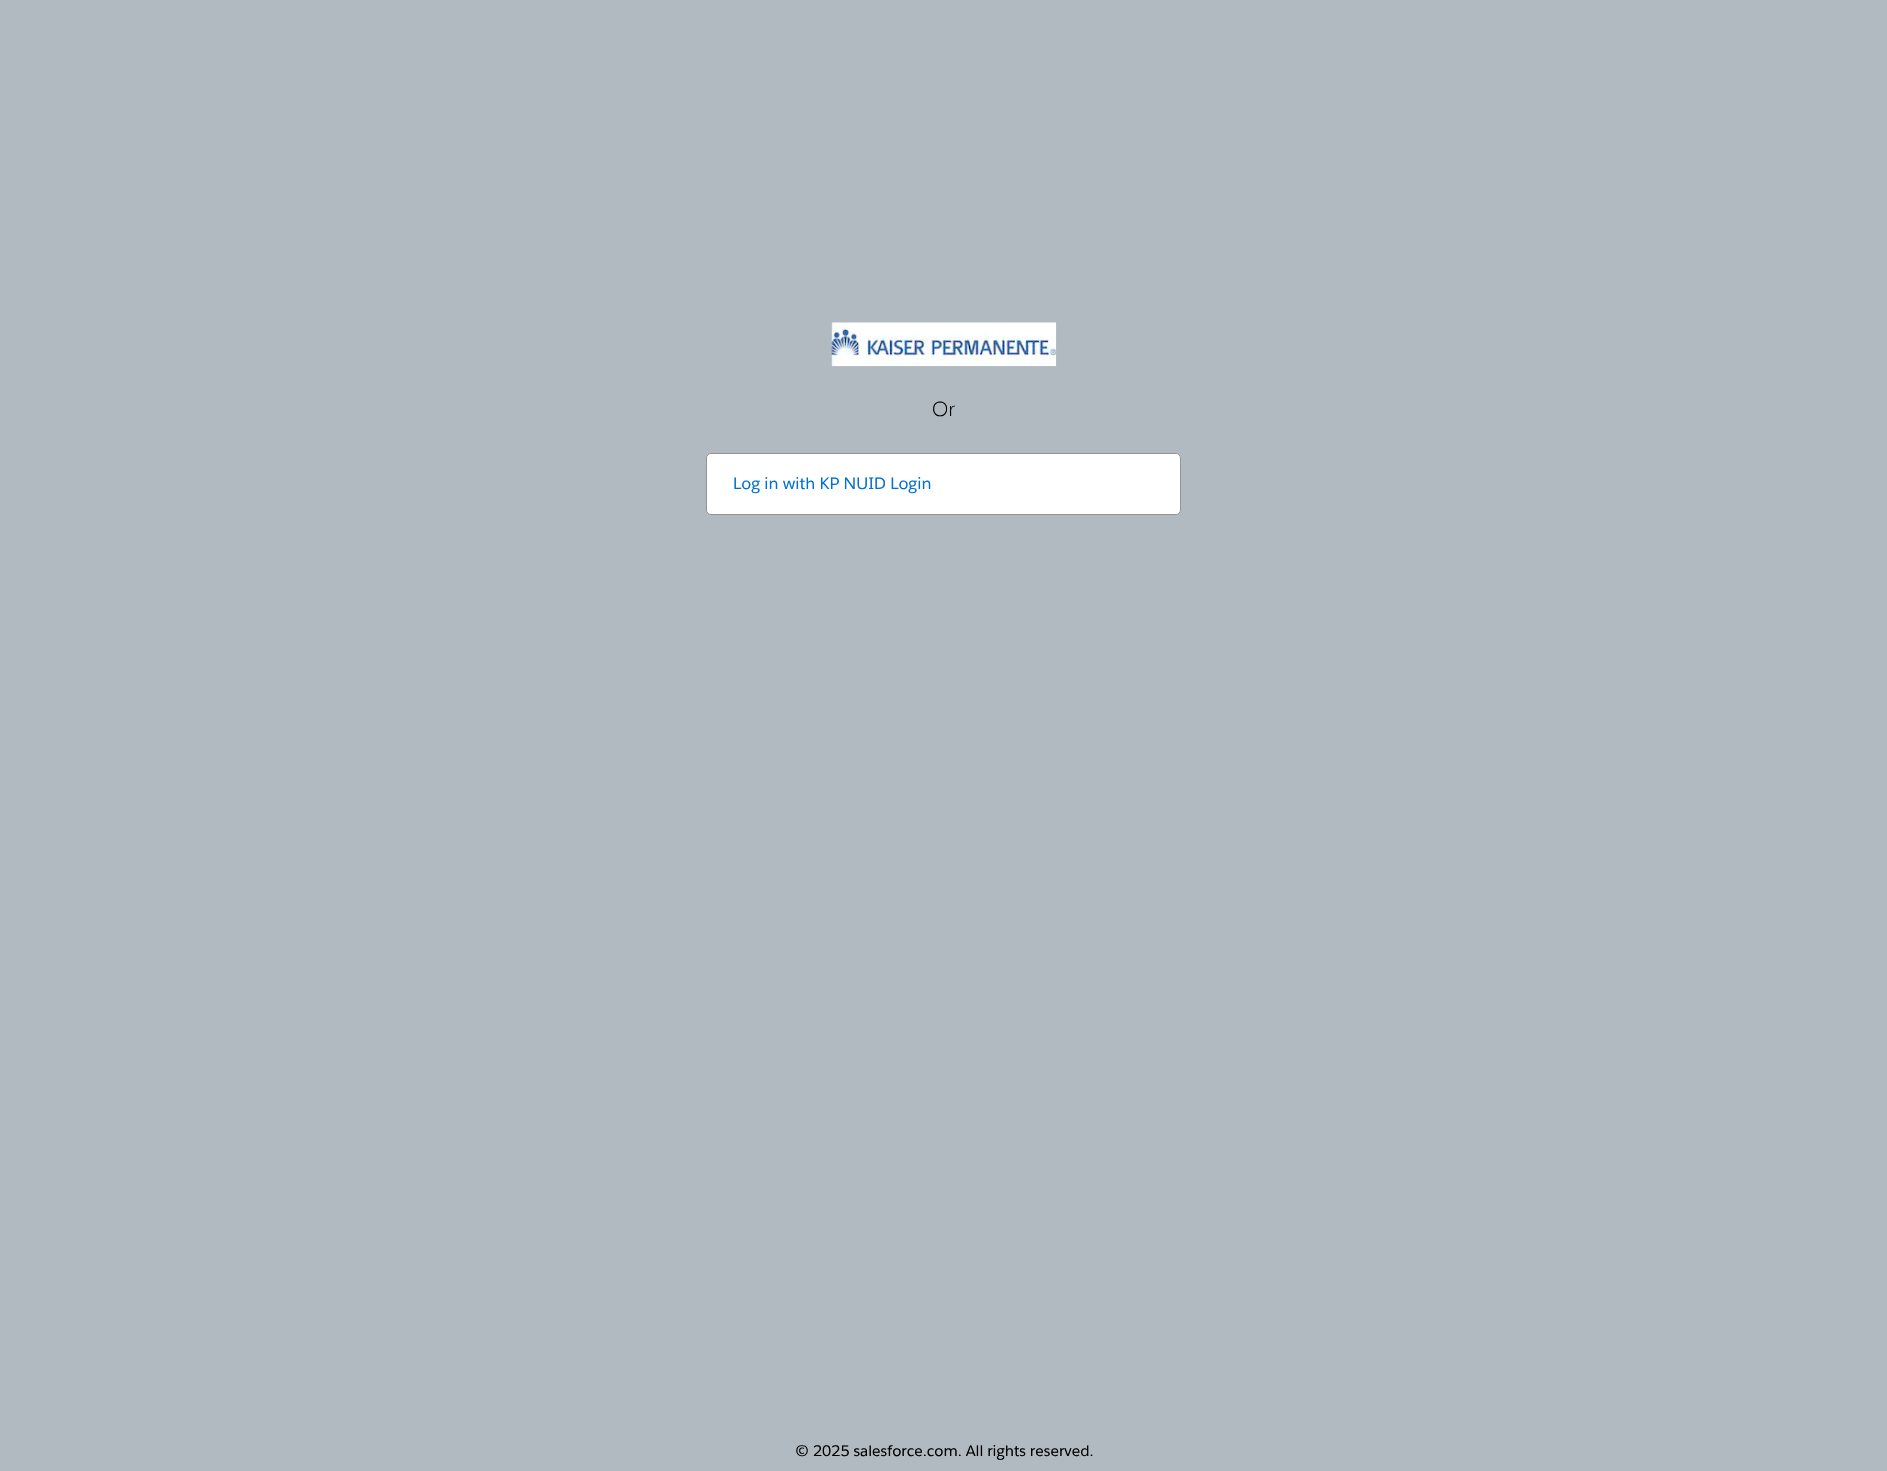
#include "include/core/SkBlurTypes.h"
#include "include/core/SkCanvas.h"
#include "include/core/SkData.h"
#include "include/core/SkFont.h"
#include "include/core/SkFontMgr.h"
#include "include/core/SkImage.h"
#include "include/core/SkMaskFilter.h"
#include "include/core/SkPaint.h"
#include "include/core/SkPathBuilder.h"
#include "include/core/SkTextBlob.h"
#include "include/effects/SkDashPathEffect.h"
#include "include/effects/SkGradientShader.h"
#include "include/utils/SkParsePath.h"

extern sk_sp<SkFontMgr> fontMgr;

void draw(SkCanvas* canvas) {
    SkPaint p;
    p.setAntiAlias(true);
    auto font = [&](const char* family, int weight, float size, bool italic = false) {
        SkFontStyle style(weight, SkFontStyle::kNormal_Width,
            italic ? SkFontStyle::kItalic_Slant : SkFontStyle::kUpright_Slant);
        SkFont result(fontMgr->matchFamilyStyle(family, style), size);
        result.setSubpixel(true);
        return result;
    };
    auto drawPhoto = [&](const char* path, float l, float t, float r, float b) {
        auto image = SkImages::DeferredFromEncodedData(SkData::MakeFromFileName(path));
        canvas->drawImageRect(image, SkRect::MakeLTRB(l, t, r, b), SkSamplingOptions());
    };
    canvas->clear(0xFFB1BAC1);
    drawPhoto("media/1.png", 831, 322, 1057, 367);
    auto font1 = font("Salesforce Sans", 300, 20);
    p.setColor(0xFF000000);
    canvas->drawString("Or", 932, 416, font1, p);
    p.setColor(0xFFFFFFFF);
    canvas->drawRoundRect(SkRect::MakeLTRB(706.5f, 453.5f, 1180.5f, 514.5f), 4.5f, 4.5f, p);
    p.setStyle(SkPaint::kStroke_Style);
    p.setStrokeWidth(1);
    p.setColor(0xFF969492);
    canvas->drawRoundRect(SkRect::MakeLTRB(706.5f, 453.5f, 1180.5f, 514.5f), 4.5f, 4.5f, p);
    auto font2 = font("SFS", 400, 16.25f);
    p.setStyle(SkPaint::kFill_Style);
    p.setColor(0xFF0070D2);
    canvas->drawString("Log in with KP NUID Login", 733, 489, font2, p);
    auto font3 = font("SFS", 400, 15);
    p.setColor(0xFF000000);
    canvas->drawString("© 2025 salesforce.com. All rights reserved.", 795, 1456, font3, p);
}
